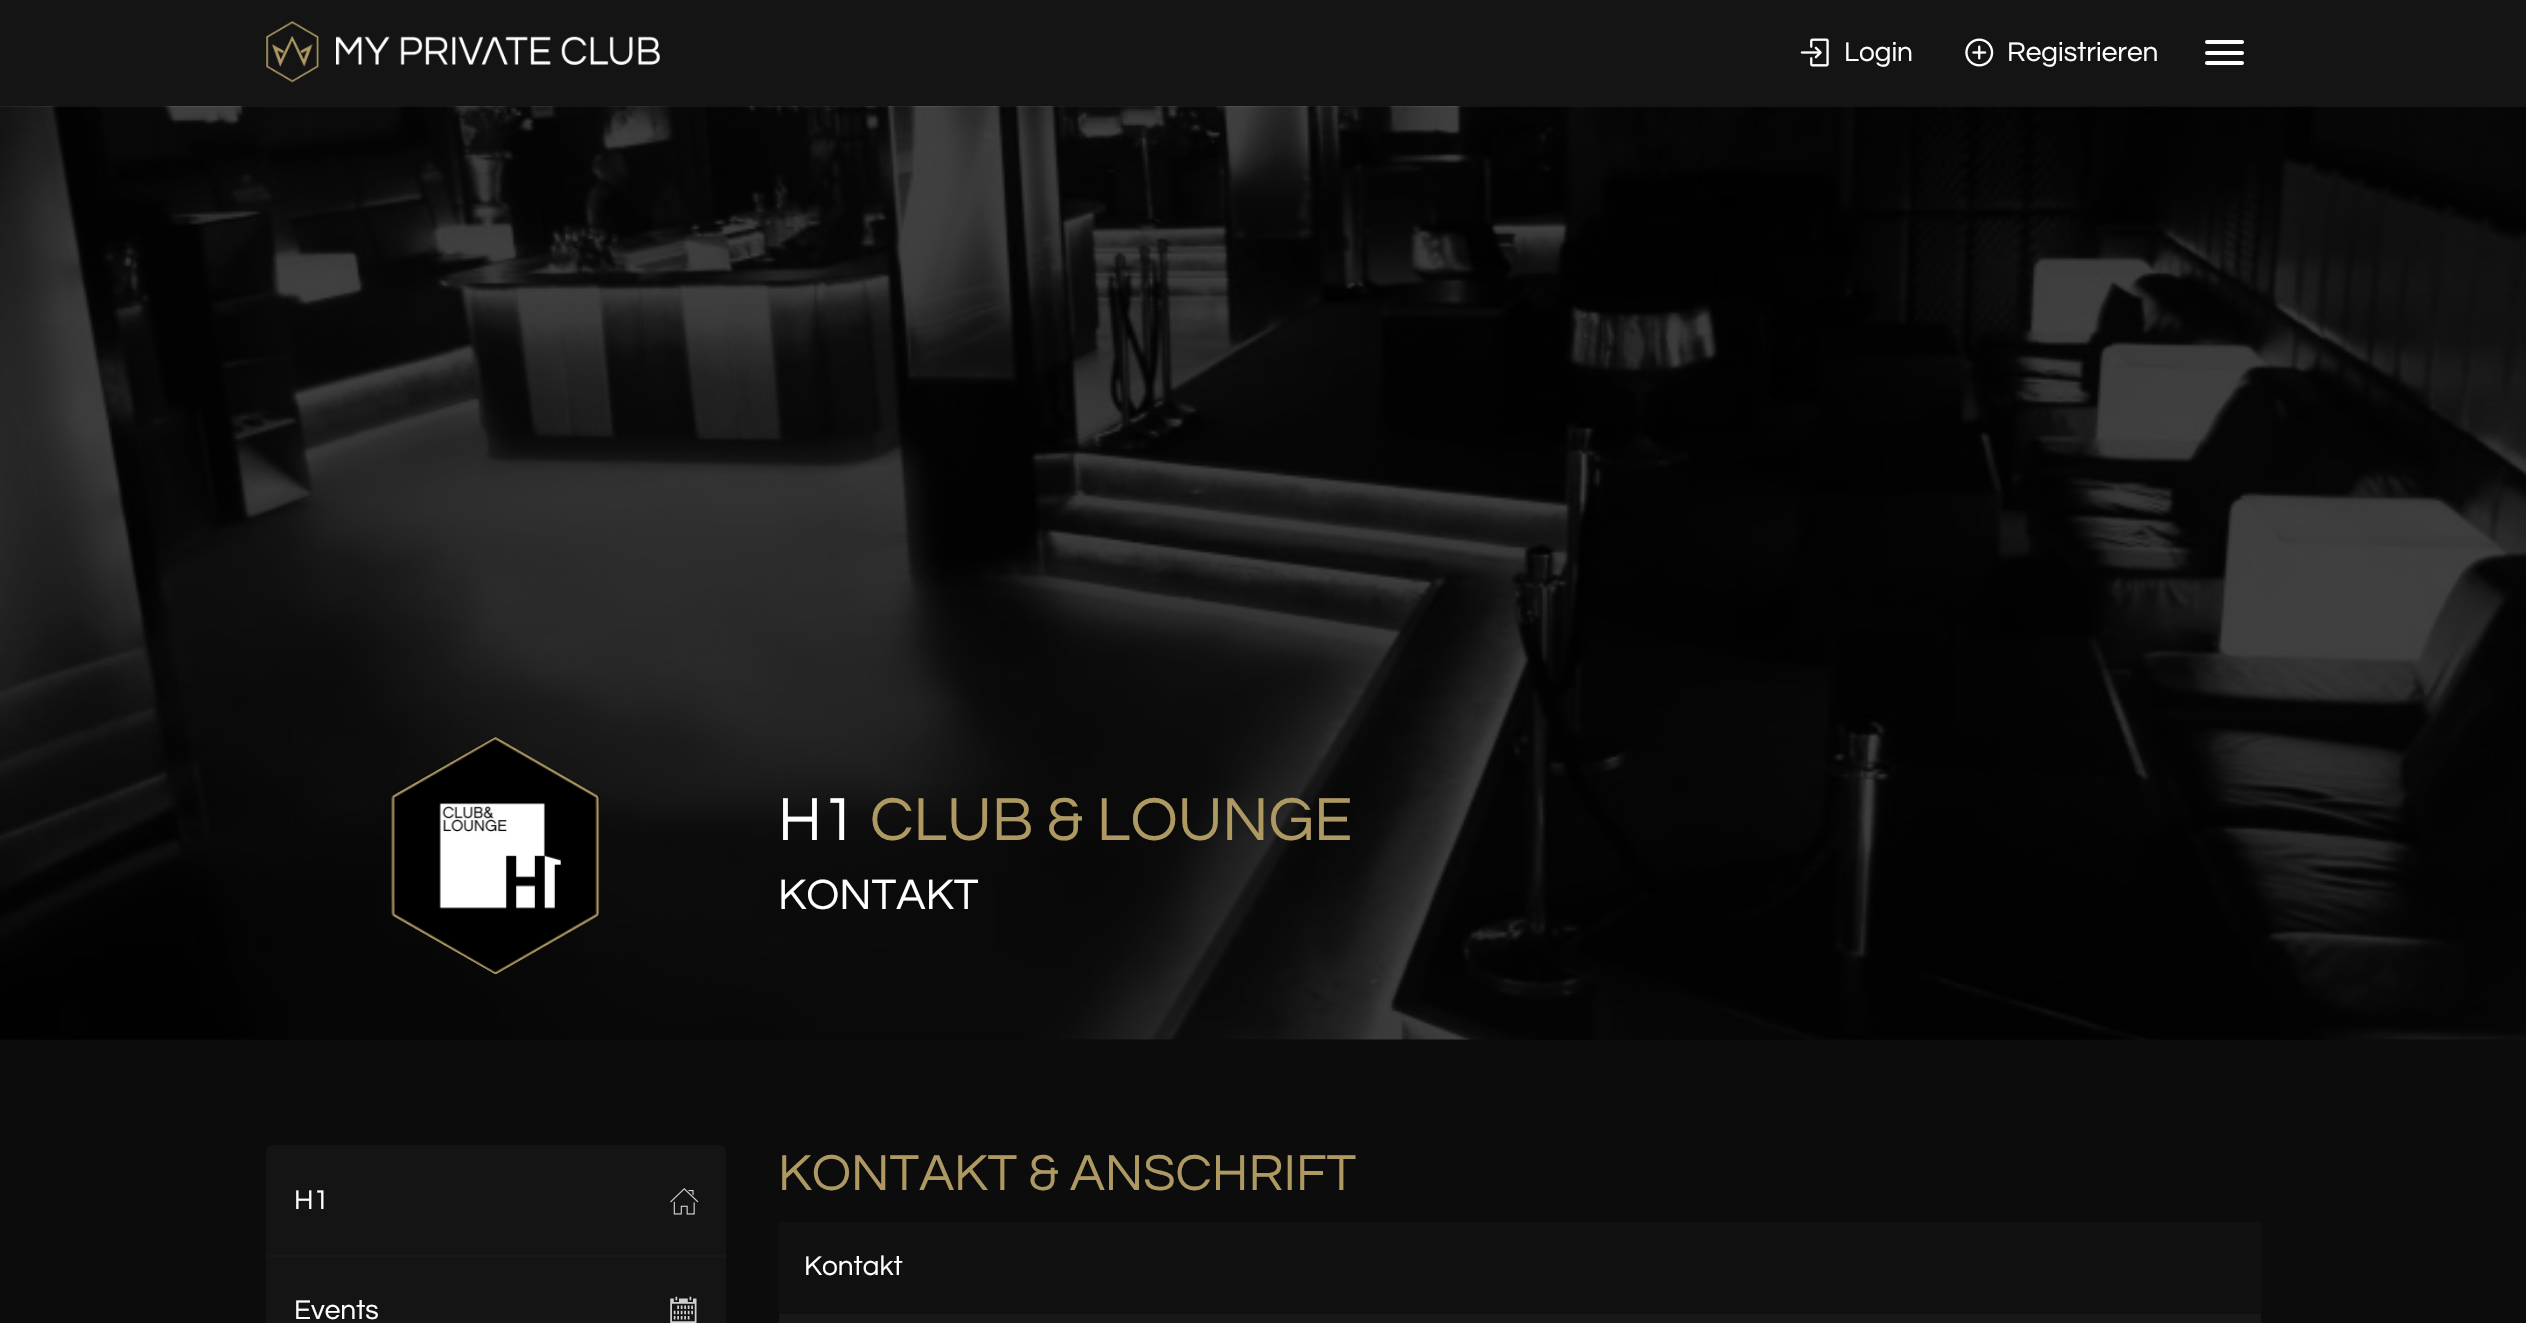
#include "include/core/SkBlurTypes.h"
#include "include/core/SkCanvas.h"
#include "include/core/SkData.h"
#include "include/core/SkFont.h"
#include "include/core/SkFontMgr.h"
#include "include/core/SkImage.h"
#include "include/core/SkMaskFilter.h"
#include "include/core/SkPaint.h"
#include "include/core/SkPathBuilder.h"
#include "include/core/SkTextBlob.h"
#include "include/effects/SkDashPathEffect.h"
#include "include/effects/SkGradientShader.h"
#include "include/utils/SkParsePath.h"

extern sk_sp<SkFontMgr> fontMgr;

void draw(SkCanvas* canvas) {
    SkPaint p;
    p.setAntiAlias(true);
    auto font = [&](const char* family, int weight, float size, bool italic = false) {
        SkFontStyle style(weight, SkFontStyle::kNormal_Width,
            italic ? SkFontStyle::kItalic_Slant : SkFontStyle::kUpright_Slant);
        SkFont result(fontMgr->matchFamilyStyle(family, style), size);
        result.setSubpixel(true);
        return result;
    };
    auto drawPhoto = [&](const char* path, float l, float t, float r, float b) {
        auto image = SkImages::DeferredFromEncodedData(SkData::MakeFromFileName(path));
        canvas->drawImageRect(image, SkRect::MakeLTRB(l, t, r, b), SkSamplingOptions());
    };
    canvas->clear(0xFF0C0C0C);
    p.setColor(0xFF141414);
    canvas->drawRect(SkRect::MakeLTRB(0, 0, 2526, 107), p);
    drawPhoto("media/1.png", 266, 21, 660, 83);
    drawPhoto("media/2.png", 1800, 38, 1829, 67);
    auto font1 = font("Questrial", 400, 28);
    p.setColor(0xFFFFFFFF);
    canvas->drawString("Login", 1844, 61, font1, p);
    drawPhoto("media/3.png", 1965, 38, 1994, 67);
    canvas->drawString("Registrieren", 2007, 61, font1, p);
    canvas->drawRoundRect(SkRect::MakeLTRB(2205, 40, 2244, 44), 2, 2, p);
    canvas->drawRoundRect(SkRect::MakeLTRB(2205, 51, 2244, 55), 2, 2, p);
    canvas->drawRoundRect(SkRect::MakeLTRB(2205, 61, 2244, 65), 2, 2, p);
    drawPhoto("media/4.png", 0, 1039, 2526, 1040);
    drawPhoto("media/5.png", 0, 106, 2526, 1040);
    drawPhoto("media/6.png", 391, 737, 600, 974);
    drawPhoto("media/7.png", 391, 737, 600, 975);
    auto font2 = font("Questrial", 400, 63);
    canvas->drawString("H1", 778, 840, font2, p);
    p.setColor(0xFFAE9962);
    canvas->drawString("CLUB & LOUNGE", 870, 840, font2, p);
    auto font3 = font("Questrial", 400, 44);
    p.setColor(0xFFFFFFFF);
    canvas->drawString("KONTAKT", 778, 909, font3, p);
    p.setColor(0xFF141414);
    canvas->drawRoundRect(SkRect::MakeLTRB(266, 1145, 726, 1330), 7, 7, p);
    p.setColor(0xFF191919);
    canvas->drawRect(SkRect::MakeLTRB(268, 1255, 725, 1257), p);
    p.setColor(0xFFFFFFFF);
    canvas->drawString("H1", 294, 1209, font1, p);
    drawPhoto("media/8.png", 670, 1188, 699, 1215);
    canvas->drawString("Events", 294, 1319, font1, p);
    drawPhoto("media/9.png", 670, 1296, 697, 1323);
    auto font4 = font("Questrial", 400, 52.5f);
    p.setColor(0xFFAE9962);
    canvas->drawString("KONTAKT & ANSCHRIFT", 778, 1190, font4, p);
    p.setColor(0xFF181818);
    canvas->drawRoundRect(SkRect::MakeLTRB(779, 1222, 2261, 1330), 7, 7, p);
    p.setColor(0xFF111111);
    canvas->drawPath(SkPathBuilder().moveTo(784, 1222).lineTo(2256, 1222).cubicTo(2259, 1222, 2261, 1224, 2261, 1227).lineTo(2261, 1314).lineTo(779, 1314).lineTo(779, 1227).cubicTo(779, 1224, 781, 1222, 784, 1222).close().detach(), p);
    p.setColor(0xFFFFFFFF);
    canvas->drawString("Kontakt", 804, 1275, font1, p);
}
